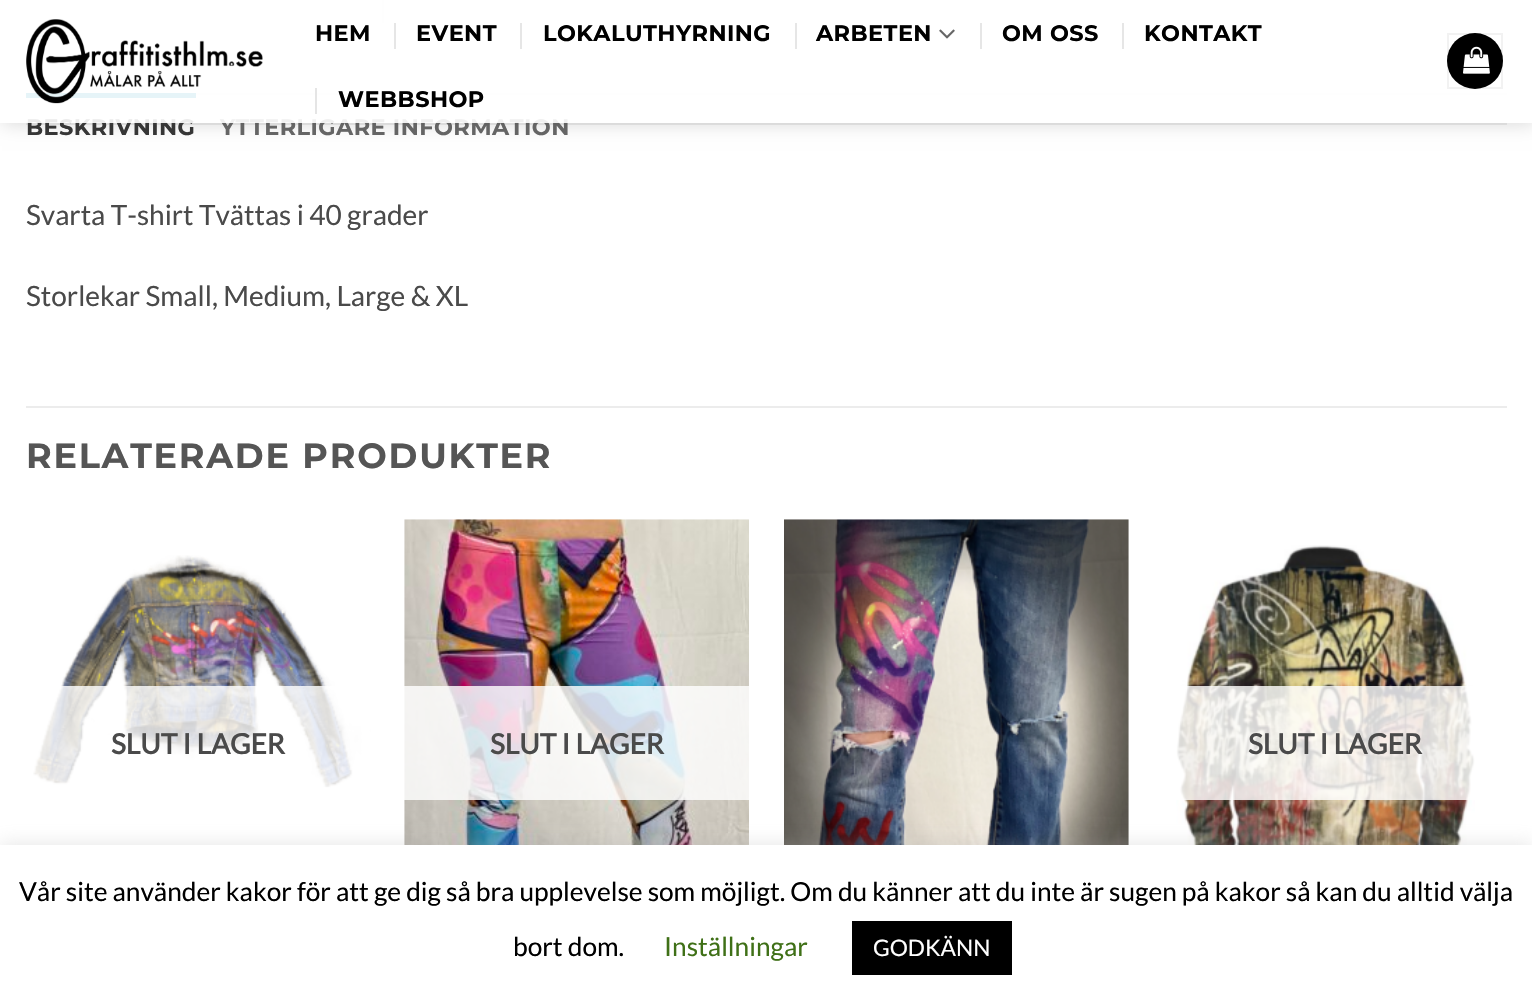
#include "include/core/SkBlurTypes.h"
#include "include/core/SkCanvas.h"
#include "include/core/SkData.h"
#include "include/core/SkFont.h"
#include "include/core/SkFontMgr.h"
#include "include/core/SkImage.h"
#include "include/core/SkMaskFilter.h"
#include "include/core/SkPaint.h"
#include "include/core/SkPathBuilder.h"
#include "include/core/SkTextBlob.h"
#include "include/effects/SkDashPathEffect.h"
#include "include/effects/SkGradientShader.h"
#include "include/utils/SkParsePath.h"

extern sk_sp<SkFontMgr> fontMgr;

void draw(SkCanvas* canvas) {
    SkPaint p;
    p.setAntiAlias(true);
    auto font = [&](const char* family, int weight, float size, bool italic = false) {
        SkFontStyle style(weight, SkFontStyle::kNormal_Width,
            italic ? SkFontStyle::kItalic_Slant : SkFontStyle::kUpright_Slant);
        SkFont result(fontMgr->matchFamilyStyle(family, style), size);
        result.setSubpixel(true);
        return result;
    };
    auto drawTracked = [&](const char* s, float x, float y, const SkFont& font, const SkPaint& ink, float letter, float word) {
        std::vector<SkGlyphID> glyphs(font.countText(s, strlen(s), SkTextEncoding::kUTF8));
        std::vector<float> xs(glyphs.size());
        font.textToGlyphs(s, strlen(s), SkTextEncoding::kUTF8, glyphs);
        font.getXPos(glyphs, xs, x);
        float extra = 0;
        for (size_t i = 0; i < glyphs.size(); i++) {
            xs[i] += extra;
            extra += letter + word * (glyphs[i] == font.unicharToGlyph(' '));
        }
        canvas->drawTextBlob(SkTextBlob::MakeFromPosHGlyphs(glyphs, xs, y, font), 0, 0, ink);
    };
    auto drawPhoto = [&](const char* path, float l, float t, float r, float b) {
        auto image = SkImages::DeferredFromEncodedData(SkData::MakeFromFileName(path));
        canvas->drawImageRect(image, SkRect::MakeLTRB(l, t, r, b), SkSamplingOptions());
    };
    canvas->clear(0xFFFFFFFF);
    {
        const struct { float l, t, r, b; SkColor color; } items[] = {
            {382, 0, 384, 23, 0xFFECECEC},
            {196, 93, 1507, 95, 0xFFECECEC},
            {26, 93, 196, 98, 0xFF008CB2},
        };
        for (auto [l, t, r, b, color] : items) {
            p.setColor(color);
            canvas->drawRect(SkRect::MakeLTRB(l, t, r, b), p);
        }
    }
    canvas->save();
    canvas->clipPath(SkPathBuilder(SkPathFillType::kEvenOdd).moveTo(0, 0).lineTo(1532, 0).lineTo(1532, 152).lineTo(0, 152).close().moveTo(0, 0).lineTo(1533, 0).lineTo(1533, 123).lineTo(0, 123).close().detach(), true);
    p.setColor(0x26000000);
    p.setMaskFilter(SkMaskFilter::MakeBlur(kNormal_SkBlurStyle, 9));
    canvas->drawRect(SkRect::MakeLTRB(2, 2, 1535, 124), p);
    p.setMaskFilter(nullptr);
    canvas->restore();
    auto font1 = font("Montserrat", 700, 22.4f);
    p.setColor(0xFF363636);
    drawTracked("BESKRIVNING", 26, 135, font1, p, 0.45f, 0);
    p.setColor(0xFF656565);
    drawTracked("YTTERLIGARE INFORMATION", 220, 135, font1, p, 0.45f, 0);
    p.setColor(0xE6FFFFFF);
    canvas->drawRect(SkRect::MakeLTRB(0, 0, 1532, 123), p);
    drawPhoto("media/1.png", 26, 19, 263, 104);
    p.setColor(0xFF000000);
    drawTracked("HEM", 315, 41, font1, p, 0.45f, 0);
    p.setColor(0xFFE6E6E6);
    canvas->drawRect(SkRect::MakeLTRB(394, 23, 396, 49), p);
    p.setColor(0xFF000000);
    drawTracked("EVENT", 416, 41, font1, p, 0.45f, 0);
    p.setColor(0xFFE6E6E6);
    canvas->drawRect(SkRect::MakeLTRB(520, 23, 522, 49), p);
    p.setColor(0xFF000000);
    drawTracked("LOKALUTHYRNING", 543, 41, font1, p, 0.45f, 0);
    p.setColor(0xFFE6E6E6);
    canvas->drawRect(SkRect::MakeLTRB(795, 23, 797, 49), p);
    p.setColor(0xFF000000);
    drawTracked("ARBETEN", 816, 41, font1, p, 0.45f, 0);
    drawPhoto("media/2.png", 939, 29, 955, 39);
    p.setColor(0xFFE6E6E6);
    canvas->drawRect(SkRect::MakeLTRB(980, 23, 982, 49), p);
    p.setColor(0xFF000000);
    drawTracked("OM OSS", 1002, 41, font1, p, 0.45f, 0);
    p.setColor(0xFFE6E6E6);
    canvas->drawRect(SkRect::MakeLTRB(1122, 23, 1124, 49), p);
    p.setColor(0xFF000000);
    drawTracked("KONTAKT", 1144, 41, font1, p, 0.45f, 0);
    p.setColor(0xFFE5E5E5);
    canvas->drawRect(SkRect::MakeLTRB(315, 88, 317, 114), p);
    p.setColor(0xFF000000);
    drawTracked("WEBBSHOP", 338, 107, font1, p, 0.45f, 0);
    canvas->drawCircle(1475, 61, 28, p);
    p.setStyle(SkPaint::kStroke_Style);
    p.setStrokeWidth(2);
    p.setColor(0x0D000000);
    canvas->drawRect(SkRect::MakeLTRB(1448, 34, 1502, 88), p);
    drawPhoto("media/3.png", 1463, 46, 1490, 74);
    p.setStyle(SkPaint::kFill_Style);
    p.setColor(0x1A4A4A4A);
    canvas->drawRect(SkRect::MakeLTRB(26, 123, 1507, 125), p);
    auto font2 = font("Lato", 400, 28);
    p.setColor(0xFF4A4A4A);
    canvas->drawString("Svarta T-shirt Tvättas i 40 grader", 26, 225, font2, p);
    canvas->drawString("Storlekar Small, Medium, Large & XL", 26, 306, font2, p);
    p.setColor(0xFFECECEC);
    canvas->drawRect(SkRect::MakeLTRB(26, 406, 1507, 408), p);
    auto font3 = font("Montserrat", 700, 35);
    p.setColor(0xFF555555);
    drawTracked("RELATERADE PRODUKTER", 26, 468, font3, p, 1.75f, 0);
    drawPhoto("media/4.png", 33, 555, 371, 788);
    p.setColor(0xCFFFFFFF);
    canvas->drawRect(SkRect::MakeLTRB(33, 686, 371, 788), p);
    auto font4 = font("Lato", 700, 28);
    p.setColor(0xFF4A4A4A);
    canvas->drawString("SLUT I LAGER", 111, 754, font4, p);
    drawPhoto("media/5.png", 404, 519, 749, 845);
    p.setColor(0xCFFFFFFF);
    canvas->drawRect(SkRect::MakeLTRB(404, 686, 749, 800), p);
    p.setColor(0xFF4A4A4A);
    canvas->drawString("SLUT I LAGER", 490, 754, font4, p);
    drawPhoto("media/6.png", 784, 519, 1129, 845);
    drawPhoto("media/7.png", 1176, 545, 1475, 845);
    p.setColor(0xCFFFFFFF);
    canvas->drawRect(SkRect::MakeLTRB(1176, 686, 1475, 800), p);
    p.setColor(0xFF4A4A4A);
    canvas->drawString("SLUT I LAGER", 1248, 754, font4, p);
    p.setColor(0x4DACABAB);
    p.setMaskFilter(SkMaskFilter::MakeBlur(kNormal_SkBlurStyle, 9));
    canvas->drawRect(SkRect::MakeLTRB(0, 844, 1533, 1003), p);
    p.setMaskFilter(nullptr);
    p.setColor(0xFFFFFFFF);
    canvas->drawRect(SkRect::MakeLTRB(0, 845, 1532, 1003), p);
    auto font5 = font("Lato", 400, 26.25f);
    p.setColor(0xFF000000);
    canvas->drawString("Vår site använder kakor för att ge dig så bra upplevelse som möjligt. Om du känner att du inte är sugen på kakor så kan du alltid välja", 19, 901, font5, p);
    canvas->drawString("bort dom.", 513, 956, font5, p);
    p.setColor(0xFF3F7017);
    canvas->drawString("Inställningar", 664, 956, font5, p);
    p.setColor(0xFF000000);
    canvas->drawRect(SkRect::MakeLTRB(852, 921, 1012, 975), p);
    auto font6 = font("Lato", 400, 22.75f);
    p.setColor(0xFFFFFFFF);
    canvas->drawString("GODKÄNN", 873, 956, font6, p);
}
